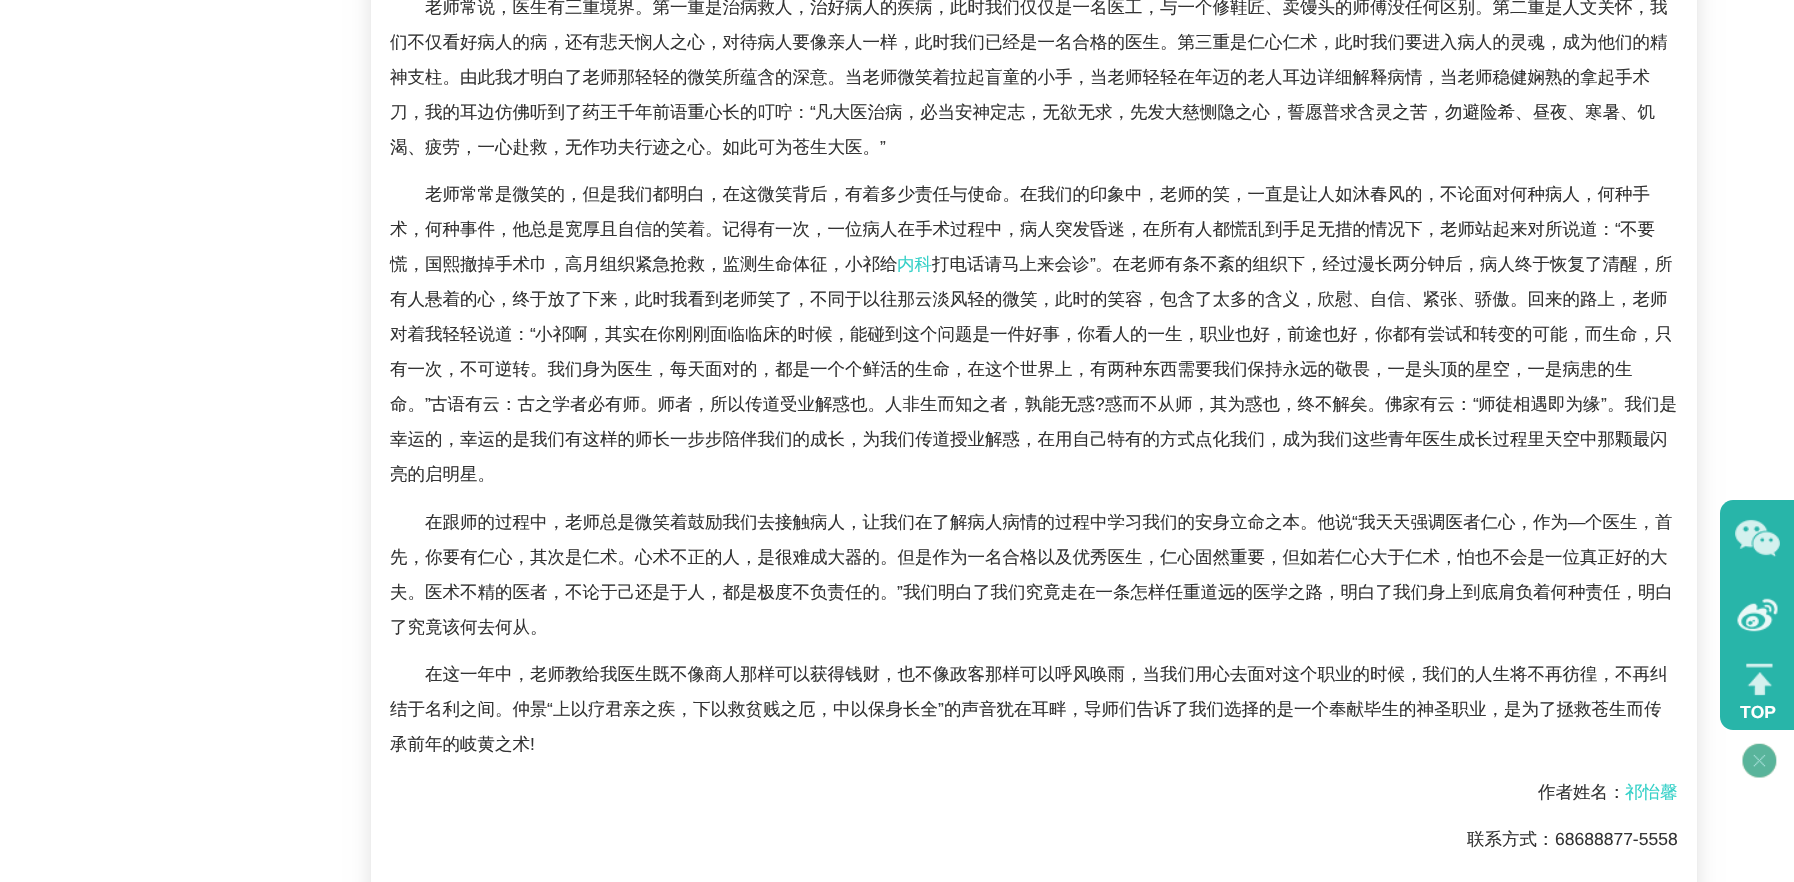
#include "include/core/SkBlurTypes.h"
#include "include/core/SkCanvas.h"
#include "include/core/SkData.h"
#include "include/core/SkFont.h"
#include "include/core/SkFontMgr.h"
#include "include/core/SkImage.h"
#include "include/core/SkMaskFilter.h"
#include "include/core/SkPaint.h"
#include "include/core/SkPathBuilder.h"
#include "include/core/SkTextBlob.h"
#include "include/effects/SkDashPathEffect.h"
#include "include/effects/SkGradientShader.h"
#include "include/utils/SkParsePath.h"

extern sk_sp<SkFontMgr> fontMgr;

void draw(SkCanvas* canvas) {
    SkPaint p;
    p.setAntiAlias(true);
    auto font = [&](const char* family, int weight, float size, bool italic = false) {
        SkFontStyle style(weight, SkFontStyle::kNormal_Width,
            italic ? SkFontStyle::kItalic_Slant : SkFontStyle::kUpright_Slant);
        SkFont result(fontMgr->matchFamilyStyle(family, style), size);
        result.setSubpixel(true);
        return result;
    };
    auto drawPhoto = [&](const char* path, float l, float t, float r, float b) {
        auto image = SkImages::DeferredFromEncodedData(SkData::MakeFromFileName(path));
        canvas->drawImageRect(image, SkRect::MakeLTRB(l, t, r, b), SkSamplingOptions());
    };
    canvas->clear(0xFFFFFFFF);
    canvas->save();
    canvas->clipPath(SkPathBuilder(SkPathFillType::kEvenOdd).moveTo(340, 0).lineTo(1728, 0).lineTo(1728, 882).lineTo(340, 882).close().moveTo(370, -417).lineTo(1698, -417).lineTo(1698, 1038).lineTo(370, 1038).close().detach(), true);
    p.setColor(0xFFE2E2E2);
    p.setMaskFilter(SkMaskFilter::MakeBlur(kNormal_SkBlurStyle, 9.5f));
    canvas->drawRect(SkRect::MakeLTRB(370, -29, 1698, 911), p);
    p.setMaskFilter(nullptr);
    canvas->restore();
    p.setStyle(SkPaint::kStroke_Style);
    p.setStrokeWidth(1);
    p.setColor(0xFFEEEEEE);
    canvas->drawRect(SkRect::MakeLTRB(370.5f, -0.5f, 1697.5f, 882.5f), p);
    auto font1 = font("WenQuanYi Zen Hei", 500, 17.5f);
    p.setStyle(SkPaint::kFill_Style);
    p.setColor(0xFF333333);
    {
        const struct { const char* s; float x, y; } items[] = {
            {"老师常说，医生有三重境界。第一重是治病救人，治好病人的疾病，此时我们仅仅是一名医工，与一个修鞋匠、卖馒头的师傅没任何区别。第二重是人文关怀，我", 425, 13},
            {"们不仅看好病人的病，还有悲天悯人之心，对待病人要像亲人一样，此时我们已经是一名合格的医生。第三重是仁心仁术，此时我们要进入病人的灵魂，成为他们的精", 390, 48},
            {"神支柱。由此我才明白了老师那轻轻的微笑所蕴含的深意。当老师微笑着拉起盲童的小手，当老师轻轻在年迈的老人耳边详细解释病情，当老师稳健娴熟的拿起手术", 390, 83},
            {"刀，我的耳边仿佛听到了药王千年前语重心长的叮咛：", 390, 118},
        };
        for (auto [s, x, y] : items) {
            canvas->drawString(s, x, y, font1, p);
        }
    }
    auto font2 = font("Liberation Sans", 400, 17.5f);
    canvas->drawString("“", 810, 118, font2, p);
    canvas->drawString("凡大医治病，必当安神定志，无欲无求，先发大慈恻隐之心，誓愿普求含灵之苦，勿避险希、昼夜、寒暑、饥", 815, 118, font1, p);
    canvas->drawString("渴、疲劳，一心赴救，无作功夫行迹之心。如此可为苍生大医。", 390, 153, font1, p);
    canvas->drawString("”", 880, 153, font2, p);
    canvas->drawString("老师常常是微笑的，但是我们都明白，在这微笑背后，有着多少责任与使命。在我们的印象中，老师的笑，一直是让人如沐春风的，不论面对何种病人，何种手", 425, 200, font1, p);
    canvas->drawString("术，何种事件，他总是宽厚且自信的笑着。记得有一次，一位病人在手术过程中，病人突发昏迷，在所有人都慌乱到手足无措的情况下，老师站起来对所说道：", 390, 235, font1, p);
    canvas->drawString("“", 1615, 235, font2, p);
    {
        const struct { const char* s; float x, y; } items[] = {
            {"不要", 1620, 235},
            {"慌，国熙撤掉手术巾，高月组织紧急抢救，监测生命体征，小祁给", 390, 270},
            {"打电话请马上来会诊", 932, 270},
        };
        for (auto [s, x, y] : items) {
            canvas->drawString(s, x, y, font1, p);
        }
    }
    p.setColor(0xFF36D1C8);
    canvas->drawString("内科", 897, 270, font1, p);
    p.setColor(0xFF333333);
    canvas->drawString("”", 1090, 270, font2, p);
    {
        const struct { const char* s; float x, y; } items[] = {
            {"。在老师有条不紊的组织下，经过漫长两分钟后，病人终于恢复了清醒，所", 1095, 270},
            {"有人悬着的心，终于放了下来，此时我看到老师笑了，不同于以往那云淡风轻的微笑，此时的笑容，包含了太多的含义，欣慰、自信、紧张、骄傲。回来的路上，老师", 390, 305},
            {"对着我轻轻说道：", 390, 340},
        };
        for (auto [s, x, y] : items) {
            canvas->drawString(s, x, y, font1, p);
        }
    }
    canvas->drawString("“", 530, 340, font2, p);
    {
        const struct { const char* s; float x, y; } items[] = {
            {"小祁啊，其实在你刚刚面临临床的时候，能碰到这个问题是一件好事，你看人的一生，职业也好，前途也好，你都有尝试和转变的可能，而生命，只", 535, 340},
            {"有一次，不可逆转。我们身为医生，每天面对的，都是一个个鲜活的生命，在这个世界上，有两种东西需要我们保持永远的敬畏，一是头顶的星空，一是病患的生", 390, 375},
            {"命。", 390, 410},
        };
        for (auto [s, x, y] : items) {
            canvas->drawString(s, x, y, font1, p);
        }
    }
    canvas->drawString("”", 425, 410, font2, p);
    canvas->drawString("古语有云：古之学者必有师。师者，所以传道受业解惑也。人非生而知之者，孰能无惑", 430, 410, font1, p);
    canvas->drawString("?", 1095, 410, font2, p);
    canvas->drawString("惑而不从师，其为惑也，终不解矣。佛家有云：", 1105, 410, font1, p);
    canvas->drawString("“", 1473, 410, font2, p);
    canvas->drawString("师徒相遇即为缘", 1478, 410, font1, p);
    canvas->drawString("”", 1601, 410, font2, p);
    {
        const struct { const char* s; float x, y; } items[] = {
            {"。我们是", 1607, 410},
            {"幸运的，幸运的是我们有这样的师长一步步陪伴我们的成长，为我们传道授业解惑，在用自己特有的方式点化我们，成为我们这些青年医生成长过程里天空中那颗最闪", 390, 445},
            {"亮的启明星。", 390, 480},
            {"在跟师的过程中，老师总是微笑着鼓励我们去接触病人，让我们在了解病人病情的过程中学习我们的安身立命之本。他说", 425, 528},
        };
        for (auto [s, x, y] : items) {
            canvas->drawString(s, x, y, font1, p);
        }
    }
    canvas->drawString("“", 1352, 528, font2, p);
    canvas->drawString("我天天强调医者仁心，作为", 1358, 528, font1, p);
    canvas->drawString("—", 1568, 528, font2, p);
    {
        const struct { const char* s; float x, y; } items[] = {
            {"个医生，首", 1585, 528},
            {"先，你要有仁心，其次是仁术。心术不正的人，是很难成大器的。但是作为一名合格以及优秀医生，仁心固然重要，但如若仁心大于仁术，怕也不会是一位真正好的大", 390, 563},
            {"夫。医术不精的医者，不论于己还是于人，都是极度不负责任的。", 390, 598},
        };
        for (auto [s, x, y] : items) {
            canvas->drawString(s, x, y, font1, p);
        }
    }
    canvas->drawString("”", 897, 598, font2, p);
    {
        const struct { const char* s; float x, y; } items[] = {
            {"我们明白了我们究竟走在一条怎样任重道远的医学之路，明白了我们身上到底肩负着何种责任，明白", 903, 598},
            {"了究竟该何去何从。", 390, 633},
            {"在这一年中，老师教给我医生既不像商人那样可以获得钱财，也不像政客那样可以呼风唤雨，当我们用心去面对这个职业的时候，我们的人生将不再彷徨，不再纠", 425, 680},
            {"结于名利之间。仲景", 390, 715},
        };
        for (auto [s, x, y] : items) {
            canvas->drawString(s, x, y, font1, p);
        }
    }
    canvas->drawString("“", 547, 715, font2, p);
    canvas->drawString("上以疗君亲之疾，下以救贫贱之厄，中以保身长全", 553, 715, font1, p);
    canvas->drawString("”", 938, 715, font2, p);
    canvas->drawString("的声音犹在耳畔，导师们告诉了我们选择的是一个奉献毕生的神圣职业，是为了拯救苍生而传", 944, 715, font1, p);
    canvas->drawString("承前年的岐黄之术", 390, 750, font1, p);
    canvas->drawString("!", 530, 750, font2, p);
    canvas->drawString("作者姓名：", 1538, 798, font1, p);
    p.setColor(0xFF36D1C8);
    canvas->drawString("祁怡馨", 1625, 798, font1, p);
    p.setColor(0xFF333333);
    canvas->drawString("联系方式：", 1467, 845, font1, p);
    canvas->drawString("68688877-5558", 1555, 845, font2, p);
    p.setColor(0xFF28B5A9);
    canvas->drawPath(SkPathBuilder().moveTo(1733, 500).lineTo(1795, 500).lineTo(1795, 730).lineTo(1733, 730).cubicTo(1726, 730, 1720, 724, 1720, 717).lineTo(1720, 513).cubicTo(1720, 506, 1726, 500, 1733, 500).close().detach(), p);
    drawPhoto("media/1.png", 1735, 519, 1780, 557);
    drawPhoto("media/2.png", 1737, 598, 1778, 632);
    drawPhoto("media/3.png", 1746, 663, 1773, 696);
    auto font3 = font("Liberation Sans", 700, 17.5f);
    p.setColor(0xFFFFFFFF);
    canvas->drawString("TOP", 1740, 718, font3, p);
    drawPhoto("media/4.png", 1742, 743, 1777, 778);
}
